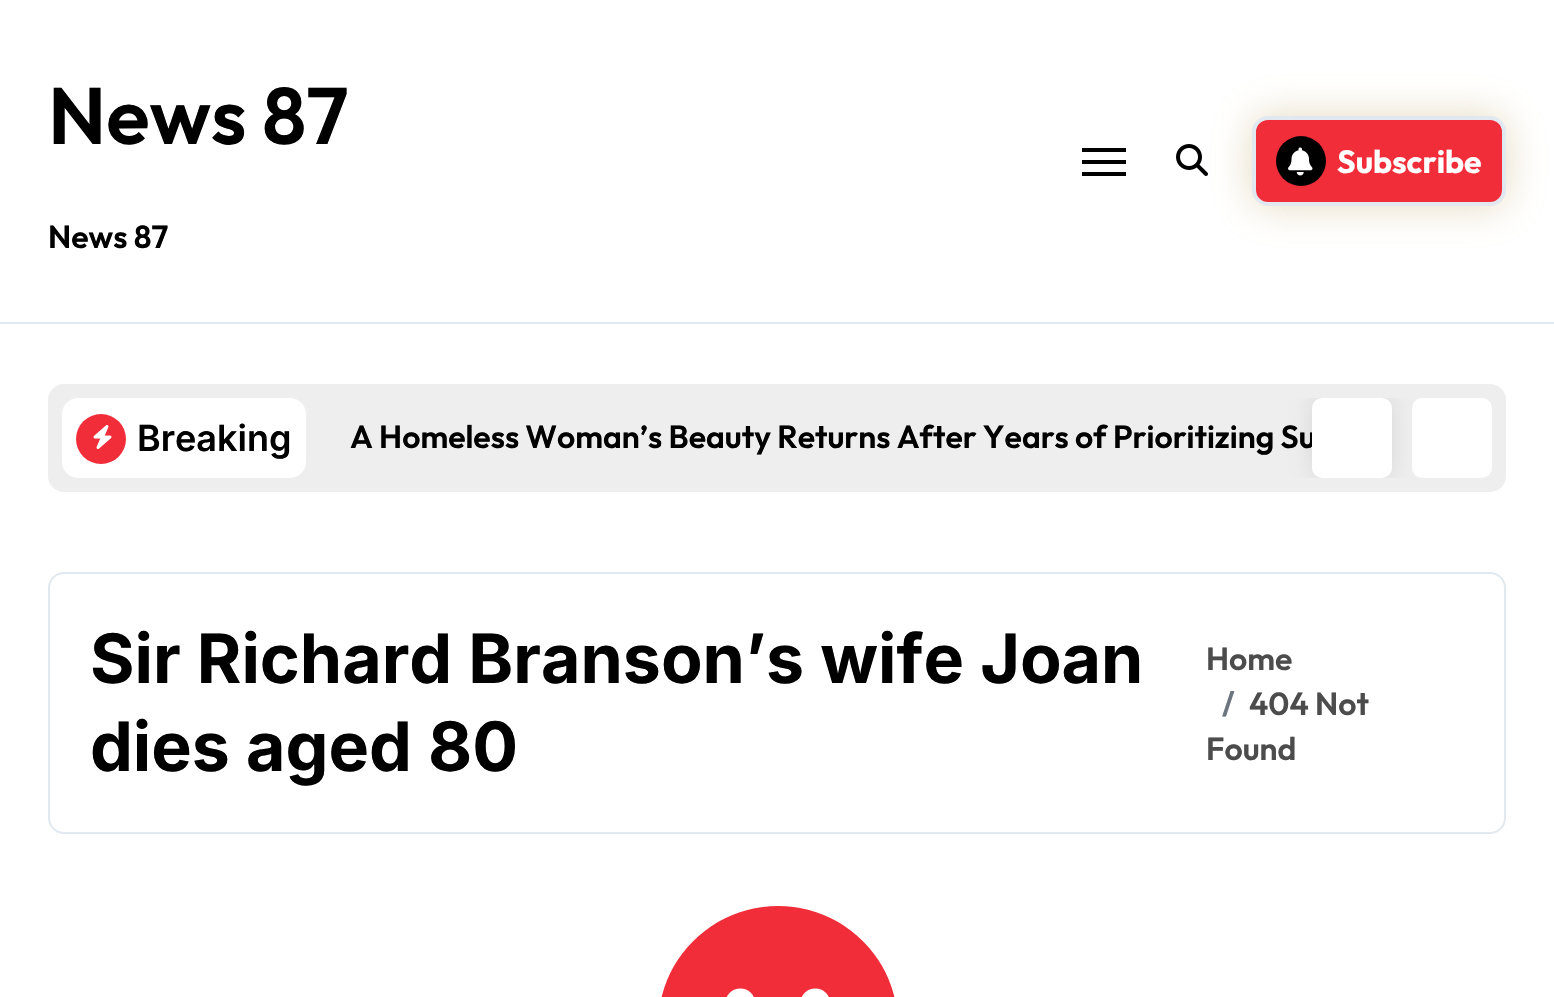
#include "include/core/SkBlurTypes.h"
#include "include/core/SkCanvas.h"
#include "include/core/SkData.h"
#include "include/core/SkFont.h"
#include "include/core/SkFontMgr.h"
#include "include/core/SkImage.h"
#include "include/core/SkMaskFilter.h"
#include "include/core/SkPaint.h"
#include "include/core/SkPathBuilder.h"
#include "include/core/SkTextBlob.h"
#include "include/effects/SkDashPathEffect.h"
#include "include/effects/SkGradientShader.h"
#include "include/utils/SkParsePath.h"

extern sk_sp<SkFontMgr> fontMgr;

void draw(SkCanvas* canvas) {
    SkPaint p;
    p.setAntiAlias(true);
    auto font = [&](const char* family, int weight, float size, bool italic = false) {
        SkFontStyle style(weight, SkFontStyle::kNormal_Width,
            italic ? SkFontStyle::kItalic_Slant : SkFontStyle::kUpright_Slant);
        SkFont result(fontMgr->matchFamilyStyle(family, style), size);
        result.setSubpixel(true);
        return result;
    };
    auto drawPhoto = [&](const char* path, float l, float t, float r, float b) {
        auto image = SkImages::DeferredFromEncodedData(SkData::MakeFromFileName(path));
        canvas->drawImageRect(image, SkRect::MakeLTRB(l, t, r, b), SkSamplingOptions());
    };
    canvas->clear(0xFFFFFFFF);
    p.setColor(0xFFE2E8F0);
    canvas->drawRect(SkRect::MakeLTRB(0, 322, 1554, 324), p);
    auto font1 = font("Outfit", 600, 80);
    p.setColor(0xFF000000);
    canvas->drawString("News 87", 48, 144, font1, p);
    auto font2 = font("Outfit", 600, 32);
    canvas->drawString("News 87", 48, 248, font2, p);
    {
        const struct { float l, t, r, b; SkColor color; } items[] = {
            {1082, 148, 1126, 152, 0xFF000000},
            {1082, 160, 1126, 164, 0xFF000000},
            {1082, 172, 1126, 176, 0xFF000000},
        };
        for (auto [l, t, r, b, color] : items) {
            p.setColor(color);
            canvas->drawRect(SkRect::MakeLTRB(l, t, r, b), p);
        }
    }
    drawPhoto("media/1.png", 1176, 144, 1208, 176);
    p.setColor(0x66C1A362);
    p.setMaskFilter(SkMaskFilter::MakeBlur(kNormal_SkBlurStyle, 20));
    canvas->drawRoundRect(SkRect::MakeLTRB(1252, 116, 1506, 206), 16, 16, p);
    p.setMaskFilter(nullptr);
    p.setColor(0xFFF22D3A);
    canvas->drawRoundRect(SkRect::MakeLTRB(1254, 118, 1504, 204), 14, 14, p);
    p.setStyle(SkPaint::kStroke_Style);
    p.setStrokeWidth(4);
    p.setColor(0xFFE2E8F0);
    canvas->drawRoundRect(SkRect::MakeLTRB(1254, 118, 1504, 204), 14, 14, p);
    p.setStyle(SkPaint::kFill_Style);
    p.setColor(0xFF000000);
    canvas->drawCircle(1301, 161, 25, p);
    drawPhoto("media/2.png", 1288, 147, 1313, 176);
    auto font3 = font("Outfit", 700, 32);
    p.setColor(0xFFFFFFFF);
    canvas->drawString("Subscribe", 1337, 173, font3, p);
    p.setColor(0xFFEEEEEE);
    canvas->drawRoundRect(SkRect::MakeLTRB(48, 384, 1506, 492), 16, 16, p);
    p.setColor(0xFFFFFFFF);
    canvas->drawRoundRect(SkRect::MakeLTRB(62, 398, 306, 478), 16, 16, p);
    p.setColor(0xFFF22D3A);
    canvas->drawCircle(101, 439, 25, p);
    drawPhoto("media/3.png", 93, 425, 112, 449);
    auto font4 = font("Inter", 600, 36);
    p.setColor(0xFF000000);
    canvas->drawString("Breaking", 137, 451, font4, p);
    canvas->drawString("A Homeless Woman’s Beauty Returns After Years of Prioritizing Su", 350, 448, font2, p);
    p.setColor(0xFFFFFFFF);
    canvas->drawRoundRect(SkRect::MakeLTRB(1412, 398, 1492, 478), 10, 10, p);
    canvas->save();
    canvas->clipRect(SkRect::MakeLTRB(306, 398, 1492, 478));
    p.setColor(0x1A000000);
    p.setMaskFilter(SkMaskFilter::MakeBlur(kNormal_SkBlurStyle, 10));
    canvas->drawRoundRect(SkRect::MakeLTRB(1312, 398, 1392, 478), 10, 10, p);
    p.setMaskFilter(nullptr);
    canvas->restore();
    p.setColor(0xFFFFFFFF);
    canvas->drawRoundRect(SkRect::MakeLTRB(1312, 398, 1392, 478), 10, 10, p);
    p.setStyle(SkPaint::kStroke_Style);
    p.setStrokeWidth(2);
    p.setColor(0xFFE2E8F0);
    canvas->drawRoundRect(SkRect::MakeLTRB(49, 573, 1505, 833), 15, 15, p);
    auto font5 = font("Inter", 700, 68);
    p.setStyle(SkPaint::kFill_Style);
    p.setColor(0xFF000000);
    canvas->drawString("Sir Richard Branson’s wife Joan", 90, 683, font5, p);
    canvas->drawString("dies aged 80", 90, 771, font5, p);
    p.setColor(0xFF4C4C4C);
    canvas->drawString("Home", 1206, 670, font2, p);
    p.setColor(0xFF6C757D);
    canvas->drawString("/", 1222, 715, font2, p);
    p.setColor(0xFF4C4C4C);
    canvas->drawString("404 Not", 1249, 715, font2, p);
    canvas->drawString("Found", 1206, 760, font2, p);
    drawPhoto("media/4.png", 661, 906, 895, 997);
}
